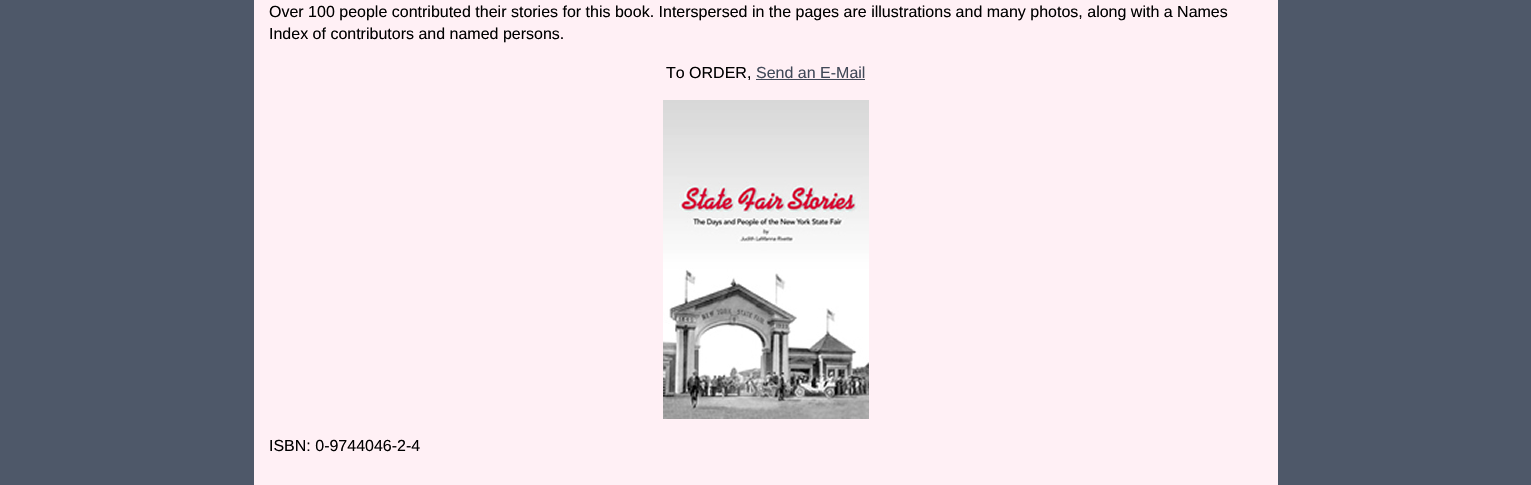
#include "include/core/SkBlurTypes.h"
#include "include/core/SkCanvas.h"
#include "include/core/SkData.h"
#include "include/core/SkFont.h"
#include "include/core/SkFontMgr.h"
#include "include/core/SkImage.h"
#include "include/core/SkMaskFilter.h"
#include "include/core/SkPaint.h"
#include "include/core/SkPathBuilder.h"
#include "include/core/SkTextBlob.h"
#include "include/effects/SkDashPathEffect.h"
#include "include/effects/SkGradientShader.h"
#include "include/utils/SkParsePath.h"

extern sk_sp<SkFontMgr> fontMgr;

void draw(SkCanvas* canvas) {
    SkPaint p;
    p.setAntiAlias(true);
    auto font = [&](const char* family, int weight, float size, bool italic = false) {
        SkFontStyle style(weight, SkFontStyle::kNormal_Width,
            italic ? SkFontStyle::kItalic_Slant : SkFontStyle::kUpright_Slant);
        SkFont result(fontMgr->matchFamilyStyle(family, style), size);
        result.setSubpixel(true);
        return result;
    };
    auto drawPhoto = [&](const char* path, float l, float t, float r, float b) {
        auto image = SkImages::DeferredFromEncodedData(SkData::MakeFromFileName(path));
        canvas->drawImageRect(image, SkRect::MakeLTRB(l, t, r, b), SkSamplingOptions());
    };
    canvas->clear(0xFF4E5869);
    p.setColor(0xFFFFF0F5);
    canvas->drawRect(SkRect::MakeLTRB(254, 0, 1278, 485), p);
    auto font1 = font("Liberation Sans", 400, 16);
    p.setColor(0xFF000000);
    {
        const struct { const char* s; float x, y; } items[] = {
            {"Over 100 people contributed their stories for this book. Interspersed in the pages are illustrations and many photos, along with a Names", 269, 17},
            {"Index of contributors and named persons.", 269, 39},
            {"To ORDER,", 666, 78},
        };
        for (auto [s, x, y] : items) {
            canvas->drawString(s, x, y, font1, p);
        }
    }
    p.setColor(0xFF414958);
    canvas->drawString("Send an E-Mail", 756, 78, font1, p);
    canvas->drawRect(SkRect::MakeLTRB(756, 79, 865, 80), p);
    drawPhoto("media/1.png", 663, 100, 869, 419);
    p.setColor(0xFF000000);
    canvas->drawString("ISBN: 0-9744046-2-4", 269, 451, font1, p);
}
